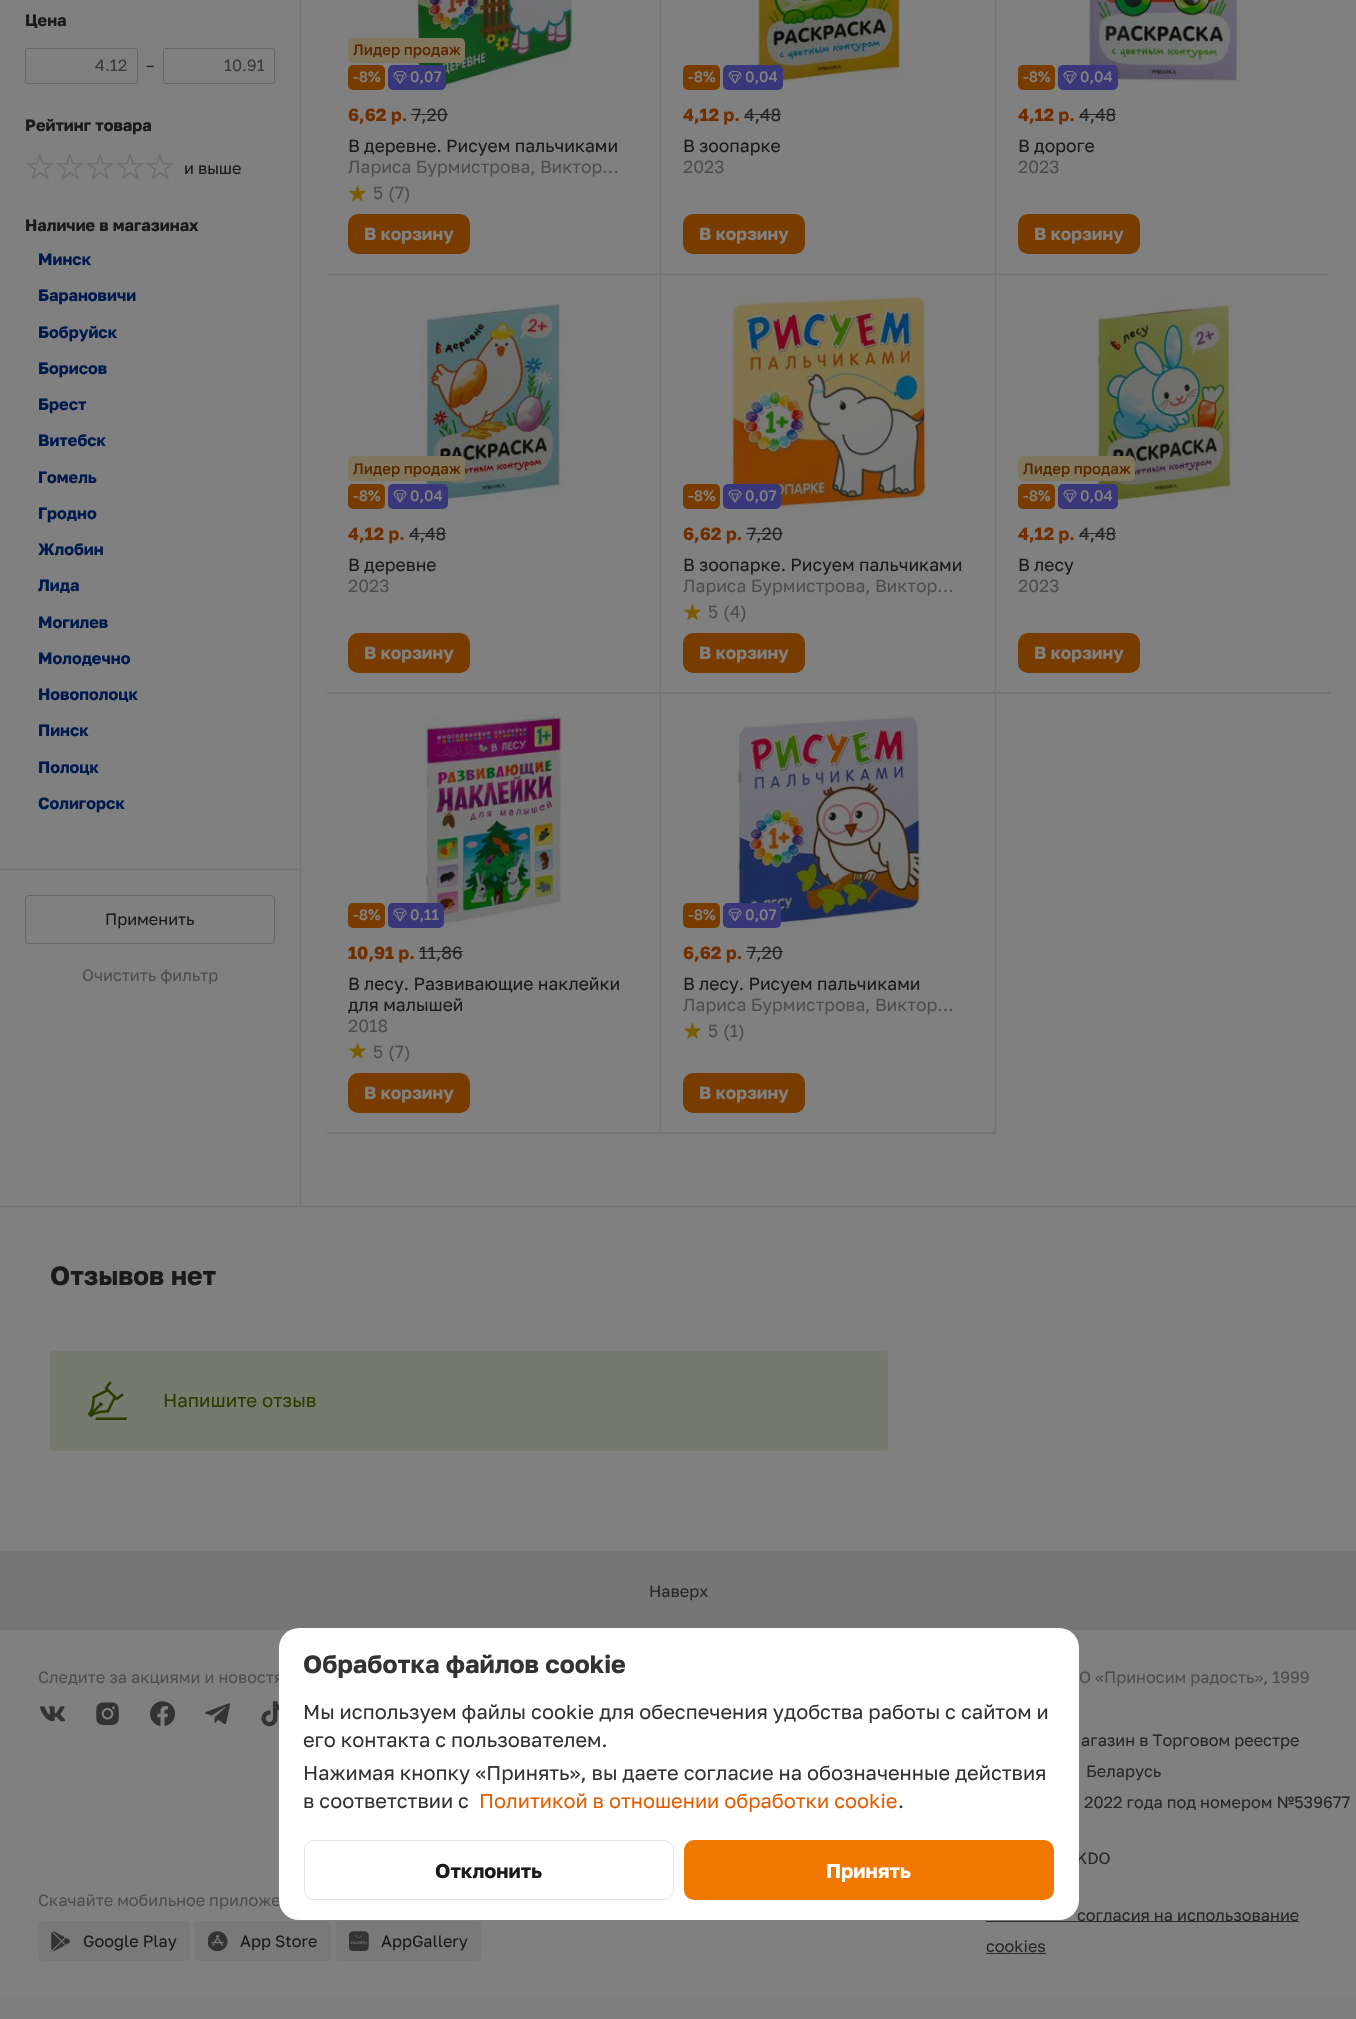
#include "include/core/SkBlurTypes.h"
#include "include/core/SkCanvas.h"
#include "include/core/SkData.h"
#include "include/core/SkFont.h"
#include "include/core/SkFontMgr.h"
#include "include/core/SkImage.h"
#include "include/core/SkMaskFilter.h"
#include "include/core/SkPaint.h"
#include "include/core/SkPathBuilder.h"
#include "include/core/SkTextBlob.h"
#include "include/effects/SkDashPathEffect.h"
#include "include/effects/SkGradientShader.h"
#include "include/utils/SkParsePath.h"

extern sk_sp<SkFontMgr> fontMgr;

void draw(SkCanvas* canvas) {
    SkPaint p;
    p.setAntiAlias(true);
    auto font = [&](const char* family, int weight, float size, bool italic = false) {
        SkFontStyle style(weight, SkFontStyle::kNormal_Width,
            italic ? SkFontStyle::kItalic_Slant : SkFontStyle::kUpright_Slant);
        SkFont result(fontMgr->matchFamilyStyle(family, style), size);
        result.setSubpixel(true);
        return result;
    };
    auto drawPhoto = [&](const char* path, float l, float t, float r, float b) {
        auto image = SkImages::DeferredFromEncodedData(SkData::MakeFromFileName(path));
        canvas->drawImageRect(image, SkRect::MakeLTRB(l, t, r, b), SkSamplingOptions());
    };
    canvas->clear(0xFF7C7C7C);
    {
        const struct { float l, t, r, b; SkColor color; } items[] = {
            {0, 0, 1356, 1551, 0xFF808080},
            {0, 1206, 1356, 1207, 0xFF737373},
            {300, 0, 301, 1206, 0xFF737373},
        };
        for (auto [l, t, r, b, color] : items) {
            p.setColor(color);
            canvas->drawRect(SkRect::MakeLTRB(l, t, r, b), p);
        }
    }
    auto font1 = font("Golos", 700, 16.25f);
    p.setColor(0xFF1A1A1A);
    canvas->drawString("Цена", 25, 26, font1, p);
    p.setStyle(SkPaint::kStroke_Style);
    p.setStrokeWidth(1);
    p.setColor(0xFF666666);
    canvas->drawRoundRect(SkRect::MakeLTRB(25.5f, 48.5f, 137.5f, 83.5f), 2, 2, p);
    auto font2 = font("Golos", 400, 16.25f);
    p.setStyle(SkPaint::kFill_Style);
    p.setColor(0xFF3B3B3B);
    canvas->drawString("4.12", 95, 71, font2, p);
    p.setColor(0xFF272727);
    canvas->drawString("–", 146, 71, font2, p);
    p.setStyle(SkPaint::kStroke_Style);
    p.setColor(0xFF666666);
    canvas->drawRoundRect(SkRect::MakeLTRB(163.5f, 48.5f, 274.5f, 83.5f), 2, 2, p);
    p.setStyle(SkPaint::kFill_Style);
    p.setColor(0xFF3B3B3B);
    canvas->drawString("10.91", 224, 71, font2, p);
    p.setColor(0xFF1A1A1A);
    canvas->drawString("Рейтинг товара", 25, 131, font1, p);
    drawPhoto("media/1.png", 26, 152, 174, 180);
    canvas->drawString("и выше", 184, 174, font2, p);
    canvas->drawString("Наличие в магазинах", 25, 231, font1, p);
    p.setColor(0xFF001A4D);
    {
        const struct { const char* s; float x, y; } items[] = {
            {"Минск", 38, 265},
            {"Барановичи", 38, 301},
            {"Бобруйск", 38, 338},
            {"Борисов", 38, 374},
            {"Брест", 38, 410},
            {"Витебск", 38, 446},
            {"Гомель", 38, 483},
            {"Гродно", 38, 519},
            {"Жлобин", 38, 555},
            {"Лида", 38, 591},
            {"Могилев", 38, 628},
            {"Молодечно", 38, 664},
            {"Новополоцк", 38, 700},
            {"Пинск", 38, 736},
            {"Полоцк", 38, 773},
            {"Солигорск", 38, 809},
        };
        for (auto [s, x, y] : items) {
            canvas->drawString(s, x, y, font1, p);
        }
    }
    p.setColor(0xFF737373);
    canvas->drawRect(SkRect::MakeLTRB(0, 869, 300, 870), p);
    p.setStyle(SkPaint::kStroke_Style);
    p.setColor(0xFF666666);
    canvas->drawRoundRect(SkRect::MakeLTRB(25.5f, 895.5f, 274.5f, 943.5f), 3.5f, 3.5f, p);
    p.setStyle(SkPaint::kFill_Style);
    p.setColor(0xFF1A1A1A);
    canvas->drawString("Применить", 105, 925, font2, p);
    p.setColor(0xFF4D4D4D);
    canvas->drawString("Очистить фильтр", 82, 981, font2, p);
    p.setColor(0xFF737373);
    canvas->drawPath(SkPathBuilder().moveTo(661, -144).lineTo(661, 275).lineTo(660, 274).lineTo(660, -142).close().detach(), p);
    p.setColor(0x1A000000);
    canvas->drawPath(SkPathBuilder().moveTo(661, 275).lineTo(326, 275).lineTo(328, 274).lineTo(660, 274).close().detach(), p);
    drawPhoto("media/3.png", 415, 0, 573, 90);
    p.setColor(0xFF80765E);
    canvas->drawRoundRect(SkRect::MakeLTRB(348, 38, 465, 63), 5, 5, p);
    auto font3 = font("Golos", 500, 15);
    p.setColor(0xFF572700);
    canvas->drawString("Лидер продаж", 353, 55, font3, p);
    p.setColor(0xFF783C00);
    canvas->drawRoundRect(SkRect::MakeLTRB(348, 65, 385, 90), 5, 5, p);
    p.setColor(0xFF808080);
    canvas->drawString("-8%", 353, 82, font3, p);
    p.setColor(0xFF38377A);
    canvas->drawRoundRect(SkRect::MakeLTRB(388, 65, 446, 90), 5, 5, p);
    drawPhoto("media/2.png", 393, 71, 407, 84);
    p.setColor(0xFF808080);
    canvas->drawString("0,07", 410, 82, font3, p);
    auto font4 = font("Golos", 700, 17.5f);
    p.setColor(0xFF712F00);
    canvas->drawString("6,62 р.", 348, 121, font4, p);
    auto font5 = font("Golos", 400, 17.5f);
    p.setColor(0xFF272727);
    canvas->drawString("7,20", 412, 121, font5, p);
    p.setColor(0xBF0E0E0E);
    canvas->drawRect(SkRect::MakeLTRB(411, 114, 448, 115), p);
    p.setColor(0xFF1A1A1A);
    canvas->drawString("В деревне. Рисуем пальчиками", 348, 152, font5, p);
    p.setColor(0xFF4D4D4D);
    canvas->drawString("Лариса Бурмистрова, Виктор…", 348, 173, font5, p);
    drawPhoto("media/4.png", 349, 185, 366, 201);
    canvas->drawString("5", 373, 199, font5, p);
    canvas->drawString("(7)", 388, 199, font5, p);
    p.setColor(0xFF783C00);
    canvas->drawRoundRect(SkRect::MakeLTRB(348, 214, 470, 254), 10, 10, p);
    p.setColor(0xFF808080);
    canvas->drawString("В корзину", 364, 240, font4, p);
    p.setColor(0xFF737373);
    canvas->drawPath(SkPathBuilder().moveTo(996, -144).lineTo(996, 275).lineTo(995, 274).lineTo(995, -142).close().detach(), p);
    p.setColor(0x1A000000);
    canvas->drawPath(SkPathBuilder().moveTo(996, 275).lineTo(661, 275).lineTo(662, 274).lineTo(995, 274).close().detach(), p);
    p.setColor(0xFF783C00);
    canvas->drawRoundRect(SkRect::MakeLTRB(683, 65, 720, 90), 5, 5, p);
    p.setColor(0xFF808080);
    canvas->drawString("-8%", 688, 82, font3, p);
    drawPhoto("media/5.png", 750, 0, 904, 87);
    p.setColor(0xFF38377A);
    canvas->drawRoundRect(SkRect::MakeLTRB(723, 65, 783, 90), 5, 5, p);
    drawPhoto("media/2.png", 728, 71, 742, 84);
    p.setColor(0xFF808080);
    canvas->drawString("0,04", 745, 82, font3, p);
    p.setColor(0xFF712F00);
    canvas->drawString("4,12 р.", 683, 121, font4, p);
    p.setColor(0xFF272727);
    canvas->drawString("4,48", 744, 121, font5, p);
    p.setColor(0xBF0E0E0E);
    canvas->drawRect(SkRect::MakeLTRB(745, 114, 781, 115), p);
    p.setColor(0xFF1A1A1A);
    canvas->drawString("В зоопарке", 683, 152, font5, p);
    p.setColor(0xFF4D4D4D);
    canvas->drawString("2023", 683, 173, font5, p);
    p.setColor(0xFF783C00);
    canvas->drawRoundRect(SkRect::MakeLTRB(683, 214, 805, 254), 10, 10, p);
    p.setColor(0xFF808080);
    canvas->drawString("В корзину", 699, 240, font4, p);
    p.setColor(0x1A000000);
    canvas->drawPath(SkPathBuilder().moveTo(1331, 275).lineTo(996, 275).lineTo(998, 274).lineTo(1330, 274).close().detach(), p);
    p.setColor(0xFF783C00);
    canvas->drawRoundRect(SkRect::MakeLTRB(1018, 65, 1055, 90), 5, 5, p);
    p.setColor(0xFF808080);
    canvas->drawString("-8%", 1023, 82, font3, p);
    drawPhoto("media/6.png", 1083, 0, 1242, 82);
    p.setColor(0xFF38377A);
    canvas->drawRoundRect(SkRect::MakeLTRB(1058, 65, 1118, 90), 5, 5, p);
    drawPhoto("media/2.png", 1063, 71, 1077, 84);
    p.setColor(0xFF808080);
    canvas->drawString("0,04", 1080, 82, font3, p);
    p.setColor(0xFF712F00);
    canvas->drawString("4,12 р.", 1018, 121, font4, p);
    p.setColor(0xFF272727);
    canvas->drawString("4,48", 1079, 121, font5, p);
    p.setColor(0xBF0E0E0E);
    canvas->drawRect(SkRect::MakeLTRB(1080, 114, 1116, 115), p);
    p.setColor(0xFF1A1A1A);
    canvas->drawString("В дороге", 1018, 152, font5, p);
    p.setColor(0xFF4D4D4D);
    canvas->drawString("2023", 1018, 173, font5, p);
    p.setColor(0xFF783C00);
    canvas->drawRoundRect(SkRect::MakeLTRB(1018, 214, 1140, 254), 10, 10, p);
    p.setColor(0xFF808080);
    canvas->drawString("В корзину", 1034, 240, font4, p);
    p.setColor(0xFF737373);
    canvas->drawPath(SkPathBuilder().moveTo(661, 275).lineTo(661, 694).lineTo(660, 692).lineTo(660, 276).close().detach(), p);
    p.setColor(0x1A000000);
    canvas->drawPath(SkPathBuilder().moveTo(661, 694).lineTo(326, 694).lineTo(328, 692).lineTo(660, 692).close().detach(), p);
    drawPhoto("media/8.png", 419, 300, 566, 502);
    p.setColor(0xFF80765E);
    canvas->drawRoundRect(SkRect::MakeLTRB(348, 456, 465, 481), 5, 5, p);
    p.setColor(0xFF572700);
    canvas->drawString("Лидер продаж", 353, 474, font3, p);
    p.setColor(0xFF783C00);
    canvas->drawRoundRect(SkRect::MakeLTRB(348, 484, 385, 509), 5, 5, p);
    p.setColor(0xFF808080);
    canvas->drawString("-8%", 353, 501, font3, p);
    p.setColor(0xFF38377A);
    canvas->drawRoundRect(SkRect::MakeLTRB(388, 484, 448, 509), 5, 5, p);
    drawPhoto("media/7.png", 393, 489, 407, 503);
    p.setColor(0xFF808080);
    canvas->drawString("0,04", 410, 501, font3, p);
    p.setColor(0xFF712F00);
    canvas->drawString("4,12 р.", 348, 540, font4, p);
    p.setColor(0xFF272727);
    canvas->drawString("4,48", 409, 540, font5, p);
    p.setColor(0xBF0E0E0E);
    canvas->drawRect(SkRect::MakeLTRB(410, 533, 446, 534), p);
    p.setColor(0xFF1A1A1A);
    canvas->drawString("В деревне", 348, 571, font5, p);
    p.setColor(0xFF4D4D4D);
    canvas->drawString("2023", 348, 592, font5, p);
    p.setColor(0xFF783C00);
    canvas->drawRoundRect(SkRect::MakeLTRB(348, 633, 470, 673), 10, 10, p);
    p.setColor(0xFF808080);
    canvas->drawString("В корзину", 364, 659, font4, p);
    p.setColor(0xFF737373);
    canvas->drawPath(SkPathBuilder().moveTo(996, 275).lineTo(996, 694).lineTo(995, 692).lineTo(995, 276).close().detach(), p);
    p.setColor(0x1A000000);
    canvas->drawPath(SkPathBuilder().moveTo(996, 694).lineTo(661, 694).lineTo(662, 692).lineTo(995, 692).close().detach(), p);
    drawPhoto("media/9.png", 731, 296, 927, 509);
    p.setColor(0xFF783C00);
    canvas->drawRoundRect(SkRect::MakeLTRB(683, 484, 720, 509), 5, 5, p);
    p.setColor(0xFF808080);
    canvas->drawString("-8%", 688, 501, font3, p);
    p.setColor(0xFF38377A);
    canvas->drawRoundRect(SkRect::MakeLTRB(723, 484, 781, 509), 5, 5, p);
    drawPhoto("media/7.png", 728, 489, 742, 503);
    p.setColor(0xFF808080);
    canvas->drawString("0,07", 745, 501, font3, p);
    p.setColor(0xFF712F00);
    canvas->drawString("6,62 р.", 683, 540, font4, p);
    p.setColor(0xFF272727);
    canvas->drawString("7,20", 747, 540, font5, p);
    p.setColor(0xBF0E0E0E);
    canvas->drawRect(SkRect::MakeLTRB(746, 533, 783, 534), p);
    p.setColor(0xFF1A1A1A);
    canvas->drawString("В зоопарке. Рисуем пальчиками", 683, 571, font5, p);
    p.setColor(0xFF4D4D4D);
    canvas->drawString("Лариса Бурмистрова, Виктор…", 683, 592, font5, p);
    drawPhoto("media/10.png", 684, 604, 701, 620);
    canvas->drawString("5", 708, 618, font5, p);
    canvas->drawString("(4)", 723, 618, font5, p);
    p.setColor(0xFF783C00);
    canvas->drawRoundRect(SkRect::MakeLTRB(683, 633, 805, 673), 10, 10, p);
    p.setColor(0xFF808080);
    canvas->drawString("В корзину", 699, 659, font4, p);
    p.setColor(0x1A000000);
    canvas->drawPath(SkPathBuilder().moveTo(1331, 694).lineTo(996, 694).lineTo(998, 692).lineTo(1330, 692).close().detach(), p);
    drawPhoto("media/11.png", 1090, 296, 1238, 507);
    p.setColor(0xFF80765E);
    canvas->drawRoundRect(SkRect::MakeLTRB(1018, 456, 1135, 481), 5, 5, p);
    p.setColor(0xFF572700);
    canvas->drawString("Лидер продаж", 1023, 474, font3, p);
    p.setColor(0xFF783C00);
    canvas->drawRoundRect(SkRect::MakeLTRB(1018, 484, 1055, 509), 5, 5, p);
    p.setColor(0xFF808080);
    canvas->drawString("-8%", 1023, 501, font3, p);
    p.setColor(0xFF38377A);
    canvas->drawRoundRect(SkRect::MakeLTRB(1058, 484, 1118, 509), 5, 5, p);
    drawPhoto("media/7.png", 1063, 489, 1077, 503);
    p.setColor(0xFF808080);
    canvas->drawString("0,04", 1080, 501, font3, p);
    p.setColor(0xFF712F00);
    canvas->drawString("4,12 р.", 1018, 540, font4, p);
    p.setColor(0xFF272727);
    canvas->drawString("4,48", 1079, 540, font5, p);
    p.setColor(0xBF0E0E0E);
    canvas->drawRect(SkRect::MakeLTRB(1080, 533, 1116, 534), p);
    p.setColor(0xFF1A1A1A);
    canvas->drawString("В лесу", 1018, 571, font5, p);
    p.setColor(0xFF4D4D4D);
    canvas->drawString("2023", 1018, 592, font5, p);
    p.setColor(0xFF783C00);
    canvas->drawRoundRect(SkRect::MakeLTRB(1018, 633, 1140, 673), 10, 10, p);
    p.setColor(0xFF808080);
    canvas->drawString("В корзину", 1034, 659, font4, p);
    p.setColor(0xFF737373);
    canvas->drawPath(SkPathBuilder().moveTo(661, 694).lineTo(661, 1134).lineTo(660, 1132).lineTo(660, 695).close().detach(), p);
    p.setColor(0x1A000000);
    canvas->drawPath(SkPathBuilder().moveTo(661, 1134).lineTo(326, 1134).lineTo(328, 1132).lineTo(660, 1132).close().detach(), p);
    p.setColor(0xFF783C00);
    canvas->drawRoundRect(SkRect::MakeLTRB(348, 903, 385, 928), 5, 5, p);
    p.setColor(0xFF808080);
    canvas->drawString("-8%", 353, 920, font3, p);
    drawPhoto("media/13.png", 425, 714, 562, 927);
    p.setColor(0xFF38377A);
    canvas->drawRoundRect(SkRect::MakeLTRB(388, 903, 444, 928), 5, 5, p);
    drawPhoto("media/12.png", 393, 908, 407, 922);
    p.setColor(0xFF808080);
    canvas->drawString("0,11", 410, 920, font3, p);
    p.setColor(0xFF712F00);
    canvas->drawString("10,91 р.", 348, 959, font4, p);
    p.setColor(0xFF272727);
    canvas->drawString("11,86", 419, 959, font5, p);
    p.setColor(0xBF0E0E0E);
    canvas->drawRect(SkRect::MakeLTRB(419, 951, 463, 952), p);
    p.setColor(0xFF1A1A1A);
    canvas->drawString("В лесу. Развивающие наклейки", 348, 990, font5, p);
    canvas->save();
    canvas->clipRect(SkRect::MakeLTRB(348, 974, 640, 1015));
    canvas->drawString("для малышей", 348, 1011, font5, p);
    canvas->restore();
    p.setColor(0xFF4D4D4D);
    canvas->drawString("2018", 348, 1032, font5, p);
    drawPhoto("media/14.png", 349, 1043, 366, 1059);
    canvas->drawString("5", 373, 1058, font5, p);
    canvas->drawString("(7)", 388, 1058, font5, p);
    p.setColor(0xFF783C00);
    canvas->drawRoundRect(SkRect::MakeLTRB(348, 1073, 470, 1113), 10, 10, p);
    p.setColor(0xFF808080);
    canvas->drawString("В корзину", 364, 1099, font4, p);
    p.setColor(0xFF737373);
    canvas->drawPath(SkPathBuilder().moveTo(996, 694).lineTo(996, 1134).lineTo(995, 1132).lineTo(995, 695).close().detach(), p);
    p.setColor(0x1A000000);
    canvas->drawPath(SkPathBuilder().moveTo(996, 1134).lineTo(661, 1134).lineTo(662, 1132).lineTo(995, 1132).close().detach(), p);
    p.setColor(0xFF783C00);
    canvas->drawRoundRect(SkRect::MakeLTRB(683, 903, 720, 928), 5, 5, p);
    p.setColor(0xFF808080);
    canvas->drawString("-8%", 688, 920, font3, p);
    drawPhoto("media/15.png", 736, 715, 922, 928);
    p.setColor(0xFF38377A);
    canvas->drawRoundRect(SkRect::MakeLTRB(723, 903, 781, 928), 5, 5, p);
    drawPhoto("media/12.png", 728, 908, 742, 922);
    p.setColor(0xFF808080);
    canvas->drawString("0,07", 745, 920, font3, p);
    p.setColor(0xFF712F00);
    canvas->drawString("6,62 р.", 683, 959, font4, p);
    p.setColor(0xFF272727);
    canvas->drawString("7,20", 747, 959, font5, p);
    p.setColor(0xBF0E0E0E);
    canvas->drawRect(SkRect::MakeLTRB(746, 951, 783, 952), p);
    p.setColor(0xFF1A1A1A);
    canvas->drawString("В лесу. Рисуем пальчиками", 683, 990, font5, p);
    p.setColor(0xFF4D4D4D);
    canvas->drawString("Лариса Бурмистрова, Виктор…", 683, 1011, font5, p);
    drawPhoto("media/14.png", 684, 1023, 701, 1039);
    canvas->drawString("5", 708, 1037, font5, p);
    canvas->drawString("(1)", 723, 1037, font5, p);
    p.setColor(0xFF783C00);
    canvas->drawRoundRect(SkRect::MakeLTRB(683, 1073, 805, 1113), 10, 10, p);
    p.setColor(0xFF808080);
    canvas->drawString("В корзину", 699, 1099, font4, p);
    canvas->drawRect(SkRect::MakeLTRB(1330, 274, 1331, 694), p);
    auto font6 = font("Golos", 700, 26.25f);
    p.setColor(0xFF1A1A1A);
    canvas->drawString("Отзывов нет", 50, 1285, font6, p);
    p.setColor(0xFF76796D);
    canvas->drawRoundRect(SkRect::MakeLTRB(50, 1351, 888, 1451), 4, 4, p);
    drawPhoto("media/16.png", 87, 1381, 128, 1420);
    auto font7 = font("Golos", 400, 18.75f);
    p.setColor(0xFF2B3C00);
    canvas->drawString("Напишите отзыв", 163, 1407, font7, p);
    p.setColor(0xFF767676);
    canvas->drawRect(SkRect::MakeLTRB(0, 1551, 1356, 1630), p);
    p.setColor(0xFF272727);
    canvas->drawString("Наверх", 649, 1597, font2, p);
    p.setColor(0xFF808080);
    canvas->drawRect(SkRect::MakeLTRB(0, 1630, 1356, 1999), p);
    p.setColor(0xFF4D4D4D);
    canvas->drawString("Следите за акциями и новостя", 38, 1683, font2, p);
    drawPhoto("media/17.png", 40, 1706, 65, 1722);
    drawPhoto("media/18.png", 96, 1702, 119, 1725);
    drawPhoto("media/19.png", 150, 1701, 175, 1726);
    drawPhoto("media/20.png", 205, 1703, 230, 1725);
    drawPhoto("media/21.png", 261, 1701, 279, 1727);
    canvas->drawString("Скачайте мобильное", 38, 1906, font2, p);
    auto font8 = font("Noto Sans", 400, 16.25f);
    canvas->drawString("п", 209, 1906, font8, p);
    canvas->drawString("риложе", 219, 1906, font2, p);
    p.setColor(0xFF797979);
    canvas->drawRoundRect(SkRect::MakeLTRB(38, 1921, 190, 1961), 4, 4, p);
    drawPhoto("media/22.png", 51, 1931, 70, 1951);
    p.setColor(0xFF1A1A1A);
    canvas->drawString("Google Play", 83, 1947, font2, p);
    p.setColor(0xFF797979);
    canvas->drawRoundRect(SkRect::MakeLTRB(195, 1921, 331, 1961), 4, 4, p);
    drawPhoto("media/23.png", 208, 1931, 228, 1951);
    p.setColor(0xFF1A1A1A);
    canvas->drawString("App Store", 240, 1947, font2, p);
    p.setColor(0xFF797979);
    canvas->drawRoundRect(SkRect::MakeLTRB(336, 1921, 481, 1961), 4, 4, p);
    drawPhoto("media/24.png", 349, 1931, 369, 1951);
    p.setColor(0xFF1A1A1A);
    canvas->drawString("AppGallery", 381, 1947, font2, p);
    p.setColor(0xFF4D4D4D);
    canvas->drawString("О «Приносим радость», 1999", 1079, 1683, font2, p);
    p.setColor(0xFF272727);
    {
        const struct { const char* s; float x, y; } items[] = {
            {"агазин в Торговом реестре", 1081, 1746},
            {"Беларусь", 1086, 1777},
            {"2022 года под номером №539677", 1084, 1808},
            {"KDO", 1076, 1864},
        };
        for (auto [s, x, y] : items) {
            canvas->drawString(s, x, y, font2, p);
        }
    }
    p.setColor(0xFF2A2A2A);
    canvas->drawRect(SkRect::MakeLTRB(986, 1921, 1299, 1922), p);
    p.setColor(0xFF272727);
    canvas->drawString("согласия на использование", 1077, 1921, font2, p);
    canvas->drawString("cookies", 986, 1952, font2, p);
    p.setColor(0xFF2A2A2A);
    canvas->drawRect(SkRect::MakeLTRB(986, 1953, 1046, 1954), p);
    p.setColor(0xFFFFFFFF);
    canvas->drawRoundRect(SkRect::MakeLTRB(279, 1628, 1079, 1920), 20, 20, p);
    auto font9 = font("Golos", 700, 25);
    p.setColor(0xFF333333);
    canvas->drawString("Обработка файлов cookie", 303, 1673, font9, p);
    auto font10 = font("Golos", 400, 20);
    {
        const struct { const char* s; float x, y; } items[] = {
            {"Мы используем файлы cookie для обеспечения удобства работы с сайтом и", 303, 1719},
            {"его контакта с пользователем.", 303, 1747},
            {"Нажимая кнопку «Принять», вы даете согласие на обозначенные действия", 303, 1780},
            {"в соответствии с", 303, 1808},
        };
        for (auto [s, x, y] : items) {
            canvas->drawString(s, x, y, font10, p);
        }
    }
    p.setColor(0xFFE25E00);
    canvas->drawString("Политикой в отношении обработки cookie", 479, 1808, font10, p);
    p.setColor(0xFF333333);
    canvas->drawString(".", 898, 1808, font10, p);
    p.setStyle(SkPaint::kStroke_Style);
    p.setColor(0xFFE6E6E6);
    canvas->drawRoundRect(SkRect::MakeLTRB(304.5f, 1840.5f, 673.5f, 1899.5f), 9.5f, 9.5f, p);
    auto font11 = font("Golos", 700, 20);
    p.setStyle(SkPaint::kFill_Style);
    p.setColor(0xFF1A1A1A);
    canvas->drawString("Отклонить", 435, 1878, font11, p);
    p.setColor(0xFFF07800);
    canvas->drawRoundRect(SkRect::MakeLTRB(684, 1840, 1054, 1900), 10, 10, p);
    p.setColor(0xFFFFFFFF);
    canvas->drawString("Принять", 826, 1878, font11, p);
}
